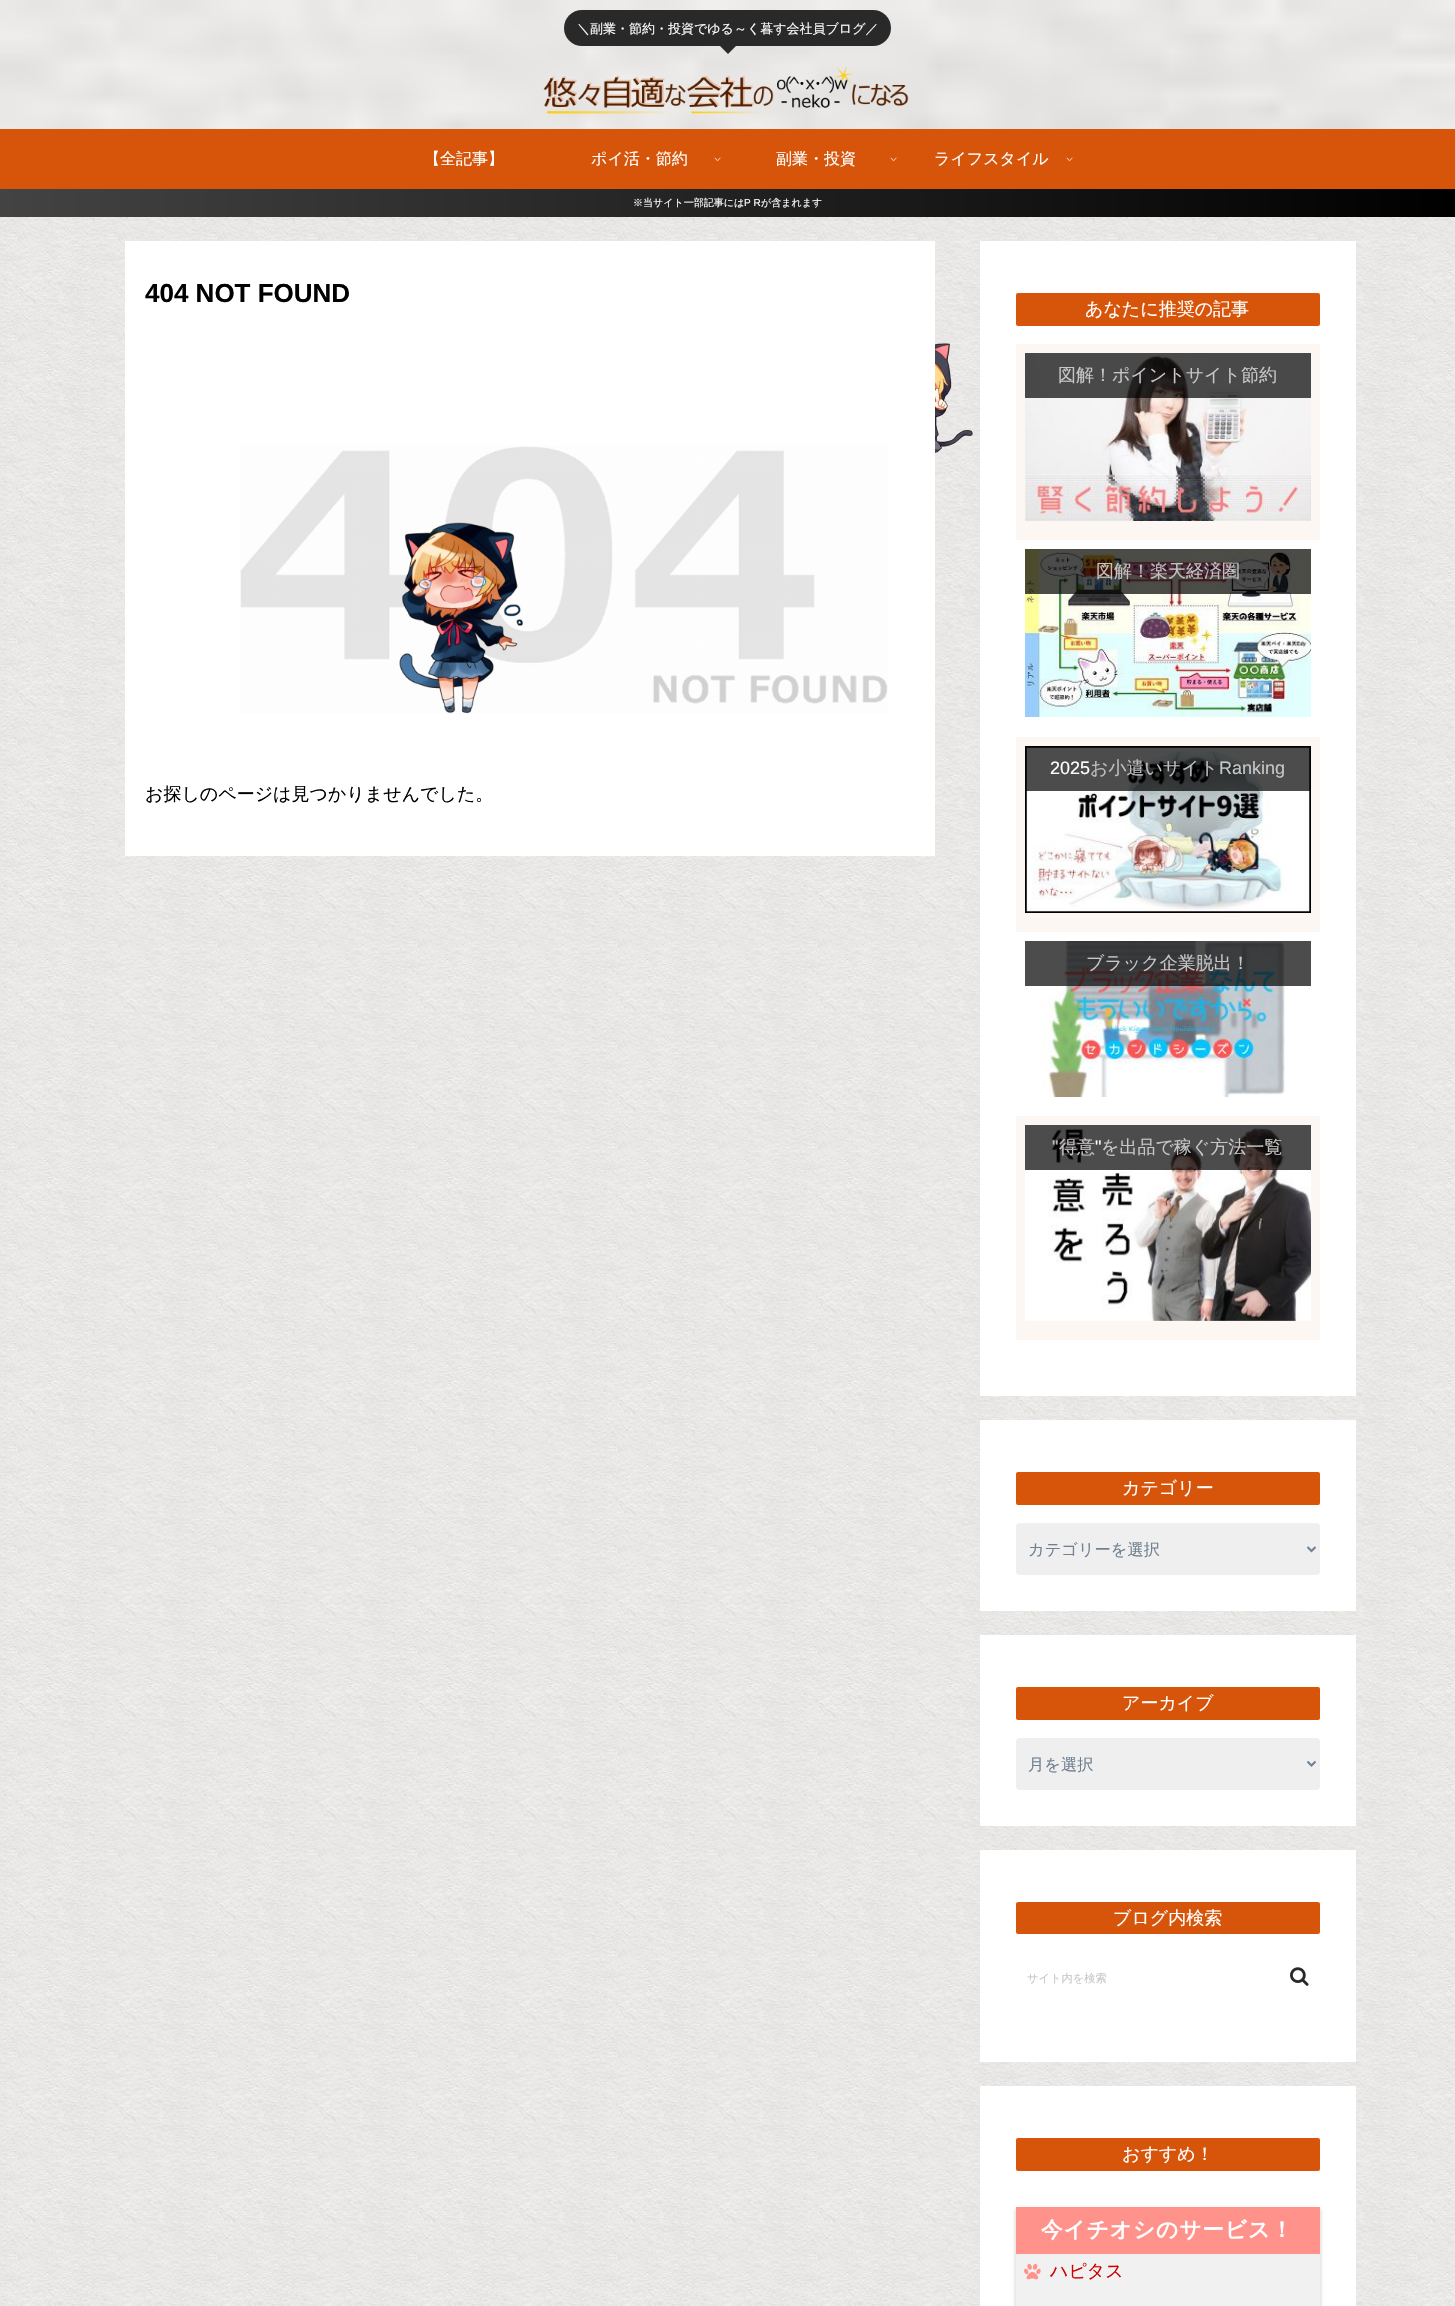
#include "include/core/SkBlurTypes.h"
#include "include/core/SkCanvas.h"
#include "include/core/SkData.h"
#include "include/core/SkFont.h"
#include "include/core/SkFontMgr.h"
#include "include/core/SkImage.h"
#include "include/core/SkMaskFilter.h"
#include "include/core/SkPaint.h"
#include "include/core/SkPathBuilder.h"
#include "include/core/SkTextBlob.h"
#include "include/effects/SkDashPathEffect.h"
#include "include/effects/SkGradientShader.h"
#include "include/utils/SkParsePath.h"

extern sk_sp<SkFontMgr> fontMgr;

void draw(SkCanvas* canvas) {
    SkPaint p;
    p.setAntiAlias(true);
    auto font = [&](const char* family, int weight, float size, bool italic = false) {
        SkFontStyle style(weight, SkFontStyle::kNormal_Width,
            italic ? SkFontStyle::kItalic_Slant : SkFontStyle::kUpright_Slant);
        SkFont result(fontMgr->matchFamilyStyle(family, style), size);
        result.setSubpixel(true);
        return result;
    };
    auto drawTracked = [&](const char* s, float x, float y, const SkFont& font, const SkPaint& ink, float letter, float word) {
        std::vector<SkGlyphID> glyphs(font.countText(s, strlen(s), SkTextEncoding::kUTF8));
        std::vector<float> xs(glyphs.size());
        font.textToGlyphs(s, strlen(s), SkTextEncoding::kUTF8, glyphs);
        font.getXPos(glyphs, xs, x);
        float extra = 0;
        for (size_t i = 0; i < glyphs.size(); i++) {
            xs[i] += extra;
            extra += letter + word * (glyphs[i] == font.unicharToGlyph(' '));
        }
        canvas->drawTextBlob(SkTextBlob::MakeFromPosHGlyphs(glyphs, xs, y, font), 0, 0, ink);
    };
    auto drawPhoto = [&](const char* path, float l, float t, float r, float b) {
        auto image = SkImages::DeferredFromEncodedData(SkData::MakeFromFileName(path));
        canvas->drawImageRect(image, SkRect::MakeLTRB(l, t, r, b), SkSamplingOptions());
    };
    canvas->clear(0xFFFFFFFF);
    drawPhoto("media/1.png", 0, 217, 1455, 2306);
    p.setColor(0xFFD6550A);
    canvas->drawRect(SkRect::MakeLTRB(0, 129, 1455, 189), p);
    drawPhoto("media/2.png", 0, 0, 1455, 129);
    p.setColor(0xFF292929);
    canvas->drawRoundRect(SkRect::MakeLTRB(564, 10, 891, 46), 18, 18, p);
    auto font1 = font("WenQuanYi Zen Hei", 500, 13);
    p.setColor(0xFFFFFFFF);
    canvas->drawString("＼副業・節約・投資でゆる～く暮す会社員ブログ／", 577, 33, font1, p);
    p.setColor(0xFF292929);
    canvas->drawPath(SkPathBuilder().moveTo(713, 39).lineTo(743, 39).lineTo(728, 54).close().detach(), p);
    drawPhoto("media/3.png", 543, 67, 909, 114);
    auto font2 = font("WenQuanYi Zen Hei", 500, 16);
    p.setColor(0xFFFFFFFF);
    canvas->drawString("【全記事】", 424, 164, font2, p);
    canvas->drawString("ポイ活・節約", 591, 164, font2, p);
    drawPhoto("media/4.png", 714, 157, 721, 162);
    canvas->drawString("副業・投資", 776, 164, font2, p);
    drawPhoto("media/4.png", 890, 157, 897, 162);
    canvas->drawString("ライフスタイル", 934, 164, font2, p);
    drawPhoto("media/4.png", 1066, 157, 1073, 162);
    {
        const SkColor colors[] = {0xFF434343, 0xFF000000};
        const float stops[] = {0, 1};
        const SkPoint ends[] = {{0, 203}, {1455, 203}};
        p.setShader(SkGradientShader::MakeLinear(ends, colors, stops, 2, SkTileMode::kClamp));
        p.setAlpha(255);
    }
    canvas->drawRect(SkRect::MakeLTRB(0, 189, 1455, 217), p);
    auto font3 = font("WenQuanYi Zen Hei", 500, 10);
    p.setShader(nullptr);
    p.setColor(0xFFFFFFFF);
    canvas->drawString("※当サイト一部記事には", 633, 206, font3, p);
    auto font4 = font("Liberation Sans", 400, 10);
    canvas->drawString("P R", 744, 206, font4, p);
    canvas->drawString("が含まれます", 761, 206, font3, p);
    canvas->drawRect(SkRect::MakeLTRB(125, 241, 935, 856), p);
    auto font5 = font("Liberation Sans", 700, 26);
    p.setColor(0xFF000000);
    canvas->drawString("404 NOT FOUND", 145, 302, font5, p);
    drawPhoto("media/5.png", 935, 343, 973, 453);
    drawPhoto("media/6.png", 240, 445, 888, 714);
    auto font6 = font("WenQuanYi Zen Hei", 500, 18);
    canvas->drawString("お探しのページは見つかりませんでした。", 145, 800, font6, p);
    p.setColor(0xFFFFFFFF);
    canvas->drawRect(SkRect::MakeLTRB(980, 241, 1356, 1396), p);
    p.setColor(0xFFD6550A);
    canvas->drawRoundRect(SkRect::MakeLTRB(1016, 293, 1320, 326), 2, 2, p);
    p.setColor(0xFFFFFFFF);
    canvas->drawString("あなたに推奨の記事", 1085, 315, font6, p);
    p.setColor(0xFFFDF7F3);
    canvas->drawRect(SkRect::MakeLTRB(1016, 344, 1320, 540), p);
    drawPhoto("media/7.png", 1025, 353, 1311, 521);
    p.setColor(0xB3000000);
    canvas->drawRect(SkRect::MakeLTRB(1025, 353, 1311, 398), p);
    p.setColor(0xFFC7C7C7);
    canvas->drawString("図解！ポイントサイト節約", 1058, 381, font6, p);
    drawPhoto("media/8.png", 1025, 549, 1311, 717);
    p.setColor(0xB3000000);
    canvas->drawRect(SkRect::MakeLTRB(1025, 549, 1311, 594), p);
    p.setColor(0xFFC6C0C1);
    canvas->drawString("図解！楽天経済圏", 1096, 577, font6, p);
    p.setColor(0xFFFDF7F3);
    canvas->drawRect(SkRect::MakeLTRB(1016, 737, 1320, 932), p);
    drawPhoto("media/9.png", 1025, 746, 1311, 913);
    p.setColor(0xB3000000);
    canvas->drawRect(SkRect::MakeLTRB(1025, 746, 1311, 791), p);
    auto font7 = font("Liberation Sans", 400, 18);
    p.setColor(0xFFFFFFFF);
    canvas->drawString("2025", 1050, 774, font7, p);
    p.setColor(0xFFC0C0C0);
    canvas->drawString("お小遣いサイト", 1090, 774, font6, p);
    p.setColor(0xFFC7C7C7);
    canvas->drawString("Ranking", 1219, 774, font7, p);
    drawPhoto("media/10.png", 1041, 941, 1285, 1097);
    p.setColor(0xB3000000);
    canvas->drawRect(SkRect::MakeLTRB(1025, 941, 1311, 986), p);
    p.setColor(0xFFC7C7C7);
    canvas->drawString("ブラック企業脱出！", 1086, 969, font6, p);
    p.setColor(0xFFFDF7F3);
    canvas->drawRect(SkRect::MakeLTRB(1016, 1116, 1320, 1340), p);
    drawPhoto("media/11.png", 1025, 1125, 1311, 1321);
    p.setColor(0xB3000000);
    canvas->drawRect(SkRect::MakeLTRB(1025, 1125, 1311, 1170), p);
    p.setColor(0xFFC0C0C0);
    canvas->drawString("\"", 1052, 1153, font7, p);
    p.setColor(0xFFC6C0C1);
    canvas->drawString("得意", 1059, 1153, font6, p);
    p.setColor(0xFFFFFFFF);
    canvas->drawString("\"", 1095, 1153, font7, p);
    p.setColor(0xFFC7C7C7);
    canvas->drawString("を出品で稼ぐ方法一覧", 1101, 1153, font6, p);
    p.setColor(0xFFFFFFFF);
    canvas->drawRect(SkRect::MakeLTRB(980, 1420, 1356, 1611), p);
    p.setColor(0xFFD6550A);
    canvas->drawRoundRect(SkRect::MakeLTRB(1016, 1472, 1320, 1505), 2, 2, p);
    p.setColor(0xFFFFFFFF);
    canvas->drawString("カテゴリー", 1122, 1494, font6, p);
    p.setColor(0xFFEFEFEF);
    canvas->drawRoundRect(SkRect::MakeLTRB(1016, 1523, 1320, 1575), 4, 4, p);
    p.setStyle(SkPaint::kStroke_Style);
    p.setStrokeWidth(2);
    p.setColor(0xFF708090);
    canvas->drawPath(SkPathBuilder().moveTo(1307.5f, 1547).lineTo(1311.5f, 1551).lineTo(1315.5f, 1547).detach(), p);
    auto font8 = font("WenQuanYi Zen Hei", 500, 16.25f);
    p.setStyle(SkPaint::kFill_Style);
    canvas->drawString("カテゴリーを選択", 1028, 1555, font8, p);
    p.setColor(0xFFFFFFFF);
    canvas->drawRect(SkRect::MakeLTRB(980, 1635, 1356, 1826), p);
    p.setColor(0xFFD6550A);
    canvas->drawRoundRect(SkRect::MakeLTRB(1016, 1687, 1320, 1720), 2, 2, p);
    p.setColor(0xFFFFFFFF);
    canvas->drawString("アーカイブ", 1122, 1709, font6, p);
    p.setColor(0xFFEFEFEF);
    canvas->drawRoundRect(SkRect::MakeLTRB(1016, 1738, 1320, 1790), 4, 4, p);
    p.setStyle(SkPaint::kStroke_Style);
    p.setColor(0xFF708090);
    canvas->drawPath(SkPathBuilder().moveTo(1307.5f, 1761.5f).lineTo(1311.5f, 1765.5f).lineTo(1315.5f, 1761.5f).detach(), p);
    p.setStyle(SkPaint::kFill_Style);
    canvas->drawString("月を選択", 1028, 1770, font8, p);
    p.setColor(0xFFFFFFFF);
    canvas->drawRect(SkRect::MakeLTRB(980, 1850, 1356, 2062), p);
    p.setColor(0xFFD6550A);
    canvas->drawRoundRect(SkRect::MakeLTRB(1016, 1902, 1320, 1934), 2, 2, p);
    p.setColor(0xFFFFFFFF);
    canvas->drawString("ブログ内検索", 1113, 1924, font6, p);
    auto font9 = font("WenQuanYi Zen Hei", 500, 11.25f);
    p.setColor(0xFFC7C7C7);
    canvas->drawString("サイト内を検索", 1027, 1982, font9, p);
    drawPhoto("media/12.png", 1290, 1967, 1309, 1986);
    p.setColor(0xFFFFFFFF);
    canvas->drawRect(SkRect::MakeLTRB(980, 2086, 1356, 2306), p);
    p.setColor(0xFFD6550A);
    canvas->drawRoundRect(SkRect::MakeLTRB(1016, 2138, 1320, 2171), 2, 2, p);
    p.setColor(0xFFFFFFFF);
    canvas->drawString("おすすめ！", 1122, 2160, font6, p);
    p.setColor(0x38000000);
    p.setMaskFilter(SkMaskFilter::MakeBlur(kNormal_SkBlurStyle, 2));
    canvas->drawRect(SkRect::MakeLTRB(1016, 2209, 1320, 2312), p);
    p.setMaskFilter(nullptr);
    p.setColor(0xFFF1F1F1);
    canvas->drawRect(SkRect::MakeLTRB(1016, 2254, 1320, 2306), p);
    p.setColor(0xFFFF938B);
    canvas->drawRect(SkRect::MakeLTRB(1016, 2207, 1320, 2254), p);
    auto font10 = font("WenQuanYi Zen Hei", 700, 21.6f);
    p.setColor(0xFFFFFFFF);
    drawTracked("今イチオシのサービス！", 1041, 2237, font10, p, 1, 0);
    drawPhoto("media/13.png", 1024, 2263, 1041, 2280);
    p.setColor(0xFFCD0000);
    canvas->drawString("ハピタス", 1050, 2277, font6, p);
}
